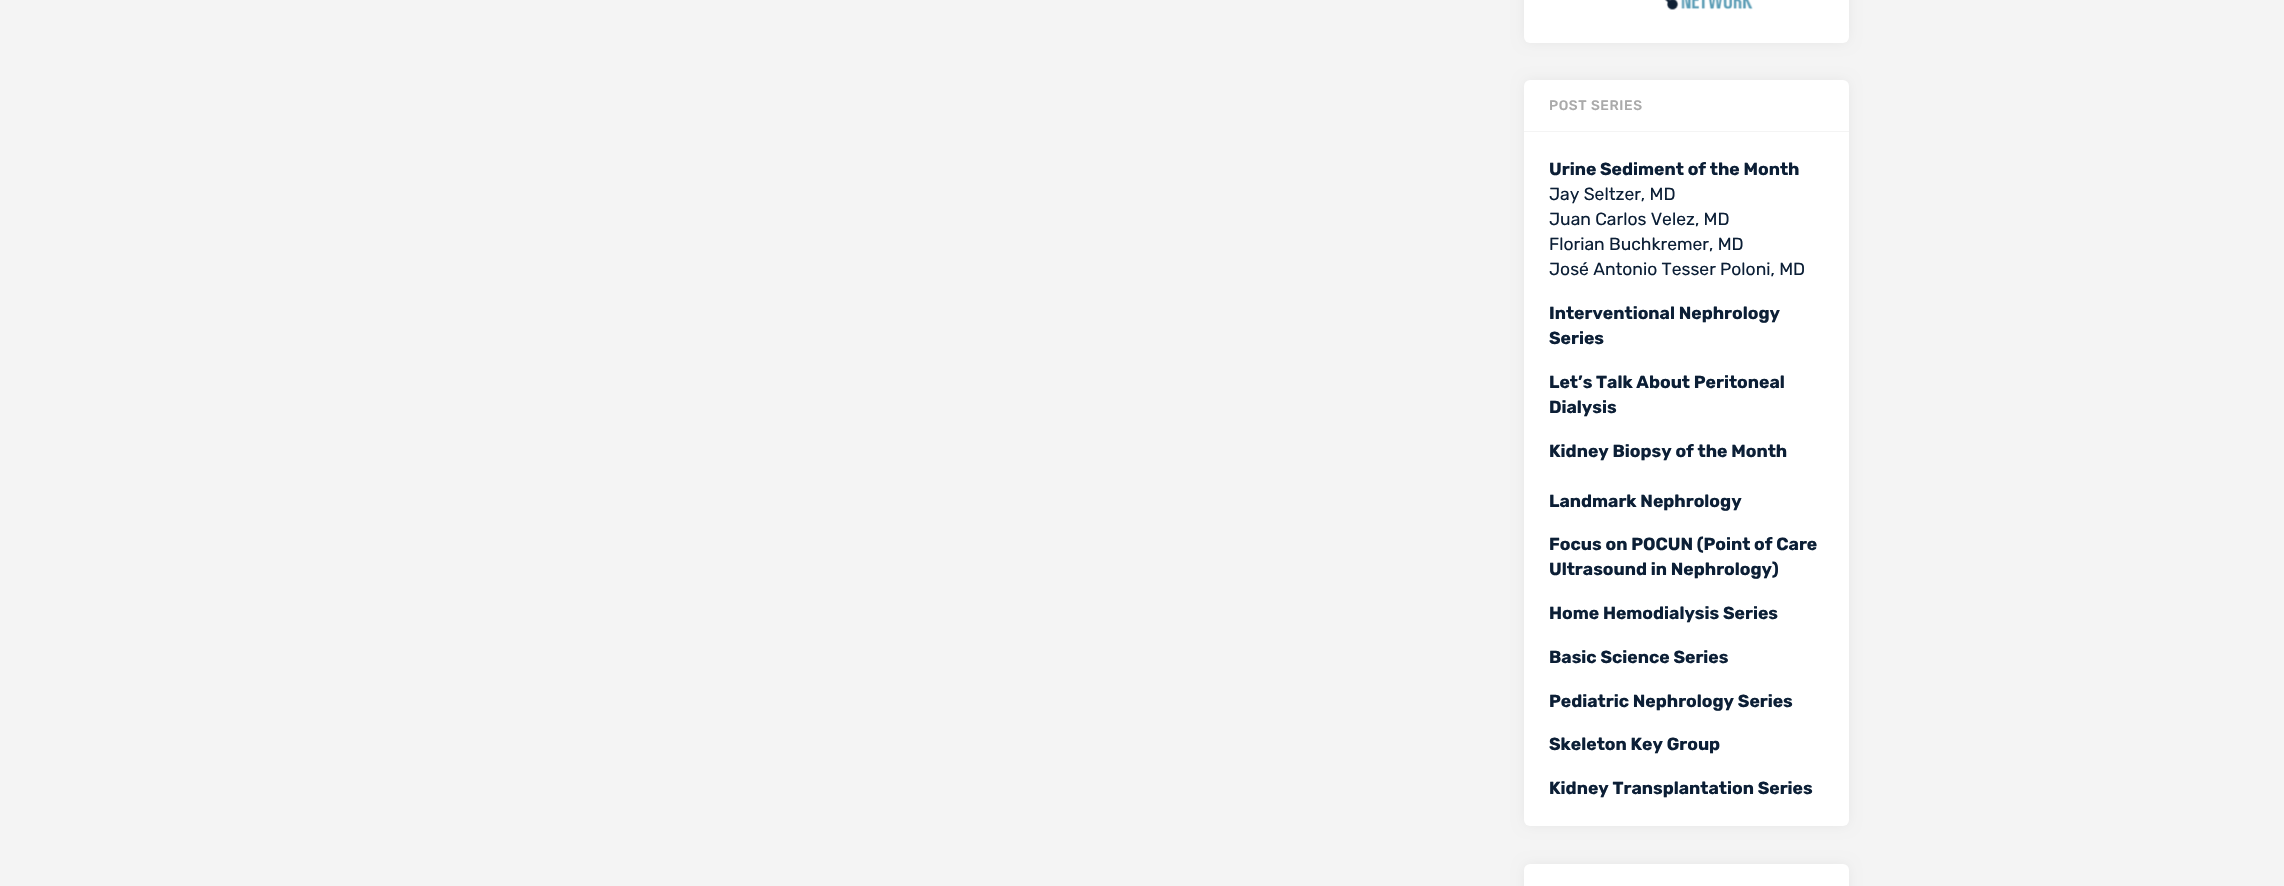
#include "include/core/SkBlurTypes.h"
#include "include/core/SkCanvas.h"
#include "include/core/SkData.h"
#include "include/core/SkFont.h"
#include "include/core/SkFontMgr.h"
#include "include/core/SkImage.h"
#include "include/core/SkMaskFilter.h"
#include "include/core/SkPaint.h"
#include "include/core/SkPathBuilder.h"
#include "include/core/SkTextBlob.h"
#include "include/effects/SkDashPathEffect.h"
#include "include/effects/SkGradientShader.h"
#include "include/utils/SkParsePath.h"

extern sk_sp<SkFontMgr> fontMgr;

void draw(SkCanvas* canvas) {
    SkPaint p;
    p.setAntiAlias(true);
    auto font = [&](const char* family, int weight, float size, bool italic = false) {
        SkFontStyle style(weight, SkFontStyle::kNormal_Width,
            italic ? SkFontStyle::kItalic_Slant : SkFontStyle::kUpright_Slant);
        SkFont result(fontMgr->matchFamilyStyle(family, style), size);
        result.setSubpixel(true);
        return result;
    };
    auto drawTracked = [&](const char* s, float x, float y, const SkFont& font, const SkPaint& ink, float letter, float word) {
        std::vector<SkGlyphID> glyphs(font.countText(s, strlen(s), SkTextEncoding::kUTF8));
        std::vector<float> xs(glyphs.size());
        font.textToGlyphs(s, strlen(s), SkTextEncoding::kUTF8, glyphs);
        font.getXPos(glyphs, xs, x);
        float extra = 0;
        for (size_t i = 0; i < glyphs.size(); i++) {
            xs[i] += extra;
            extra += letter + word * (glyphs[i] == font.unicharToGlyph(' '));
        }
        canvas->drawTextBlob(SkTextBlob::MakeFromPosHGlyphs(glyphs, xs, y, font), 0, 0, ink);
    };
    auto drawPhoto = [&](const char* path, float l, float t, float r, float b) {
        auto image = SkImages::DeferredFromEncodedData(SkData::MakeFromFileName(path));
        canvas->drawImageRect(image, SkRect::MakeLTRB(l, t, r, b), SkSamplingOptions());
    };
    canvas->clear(0xFFF4F4F4);
    p.setColor(0x0D000000);
    p.setMaskFilter(SkMaskFilter::MakeBlur(kNormal_SkBlurStyle, 6));
    canvas->drawRoundRect(SkRect::MakeLTRB(1524, -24, 1849, 43), 6, 6, p);
    p.setMaskFilter(nullptr);
    p.setColor(0xFFFFFFFF);
    canvas->drawRoundRect(SkRect::MakeLTRB(1524, -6, 1849, 43), 6, 6, p);
    drawPhoto("media/1.png", 1664, 0, 1753, 10);
    p.setColor(0x0D000000);
    p.setMaskFilter(SkMaskFilter::MakeBlur(kNormal_SkBlurStyle, 6));
    canvas->drawRoundRect(SkRect::MakeLTRB(1524, 80, 1849, 826), 6, 6, p);
    p.setMaskFilter(nullptr);
    p.setColor(0xFFFFFFFF);
    canvas->drawRoundRect(SkRect::MakeLTRB(1524, 80, 1849, 826), 6, 6, p);
    p.setColor(0xFFF4F4F4);
    canvas->drawRect(SkRect::MakeLTRB(1524, 131, 1849, 132), p);
    auto font1 = font("Rubik", 500, 13.75f);
    p.setColor(0xFFAAAAAA);
    drawTracked("POST SERIES", 1549, 110, font1, p, 0.6f, 0);
    auto font2 = font("Rubik", 700, 17.5f);
    p.setColor(0xFF0C1F36);
    canvas->drawString("Urine Sediment of the Month", 1549, 175, font2, p);
    auto font3 = font("Rubik", 400, 17.5f);
    {
        const struct { const char* s; float x, y; } items[] = {
            {"Jay Seltzer, MD", 1549, 200},
            {"Juan Carlos Velez, MD", 1549, 225},
            {"Florian Buchkremer, MD", 1549, 250},
            {"José Antonio Tesser Poloni, MD", 1549, 275},
        };
        for (auto [s, x, y] : items) {
            canvas->drawString(s, x, y, font3, p);
        }
    }
    {
        const struct { const char* s; float x, y; } items[] = {
            {"Interventional Nephrology", 1549, 319},
            {"Series", 1549, 344},
            {"Let’s Talk About Peritoneal", 1549, 388},
            {"Dialysis", 1549, 413},
            {"Kidney Biopsy of the Month", 1549, 457},
            {"Landmark Nephrology", 1549, 507},
            {"Focus on POCUN (Point of Care", 1549, 550},
            {"Ultrasound in Nephrology)", 1549, 575},
            {"Home Hemodialysis Series", 1549, 619},
            {"Basic Science Series", 1549, 663},
            {"Pediatric Nephrology Series", 1549, 707},
            {"Skeleton Key Group", 1549, 750},
            {"Kidney Transplantation Series", 1549, 794},
        };
        for (auto [s, x, y] : items) {
            canvas->drawString(s, x, y, font2, p);
        }
    }
    p.setColor(0x0D000000);
    p.setMaskFilter(SkMaskFilter::MakeBlur(kNormal_SkBlurStyle, 6));
    canvas->drawRoundRect(SkRect::MakeLTRB(1524, 864, 1849, 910), 6, 6, p);
    p.setMaskFilter(nullptr);
    p.setColor(0xFFFFFFFF);
    canvas->drawRoundRect(SkRect::MakeLTRB(1524, 864, 1849, 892), 6, 6, p);
}
